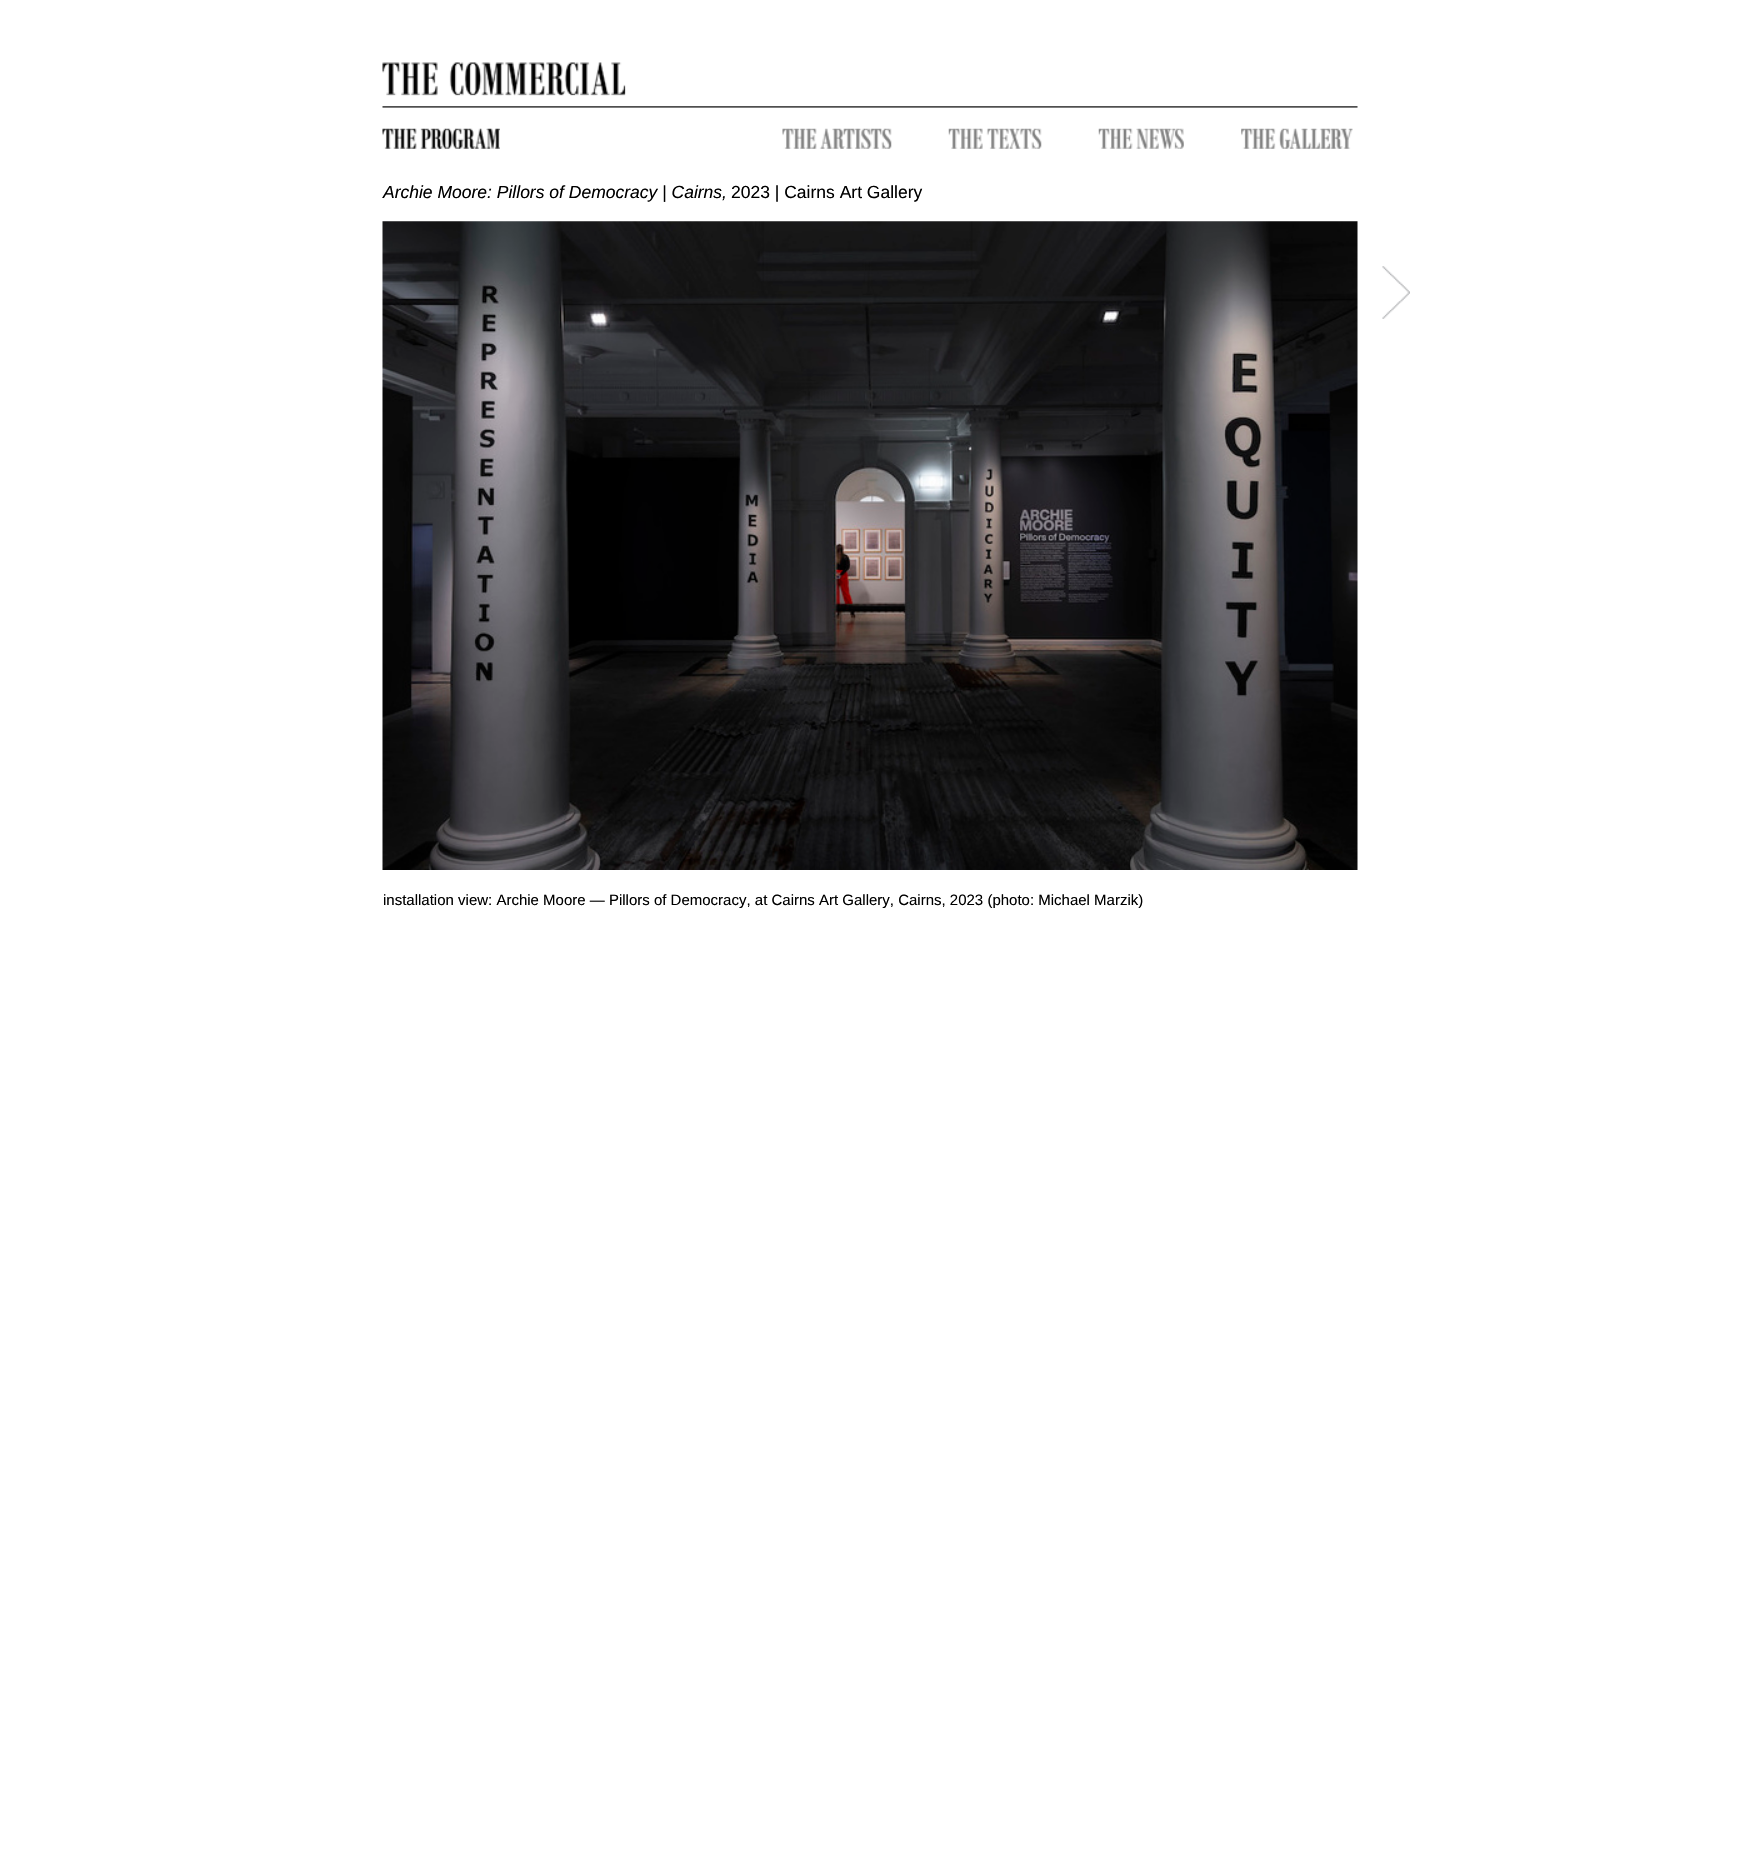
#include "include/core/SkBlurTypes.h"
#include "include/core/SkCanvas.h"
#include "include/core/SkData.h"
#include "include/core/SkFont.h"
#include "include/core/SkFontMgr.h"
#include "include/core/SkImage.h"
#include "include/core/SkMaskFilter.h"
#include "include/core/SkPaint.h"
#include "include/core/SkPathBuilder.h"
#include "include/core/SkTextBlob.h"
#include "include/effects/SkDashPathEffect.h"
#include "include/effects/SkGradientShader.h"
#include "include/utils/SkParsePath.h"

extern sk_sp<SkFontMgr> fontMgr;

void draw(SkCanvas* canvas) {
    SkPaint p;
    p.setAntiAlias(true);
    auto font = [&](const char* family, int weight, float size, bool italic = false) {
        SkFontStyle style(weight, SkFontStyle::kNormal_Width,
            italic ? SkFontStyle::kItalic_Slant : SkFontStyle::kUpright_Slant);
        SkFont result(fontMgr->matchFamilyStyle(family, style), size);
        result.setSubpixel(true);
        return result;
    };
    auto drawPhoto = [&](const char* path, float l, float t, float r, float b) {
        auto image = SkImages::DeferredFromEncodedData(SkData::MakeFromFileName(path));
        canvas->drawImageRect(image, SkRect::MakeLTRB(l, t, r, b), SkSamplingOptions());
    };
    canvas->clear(0xFFFFFFFF);
    drawPhoto("media/1.png", 382, 62, 1358, 108);
    drawPhoto("media/2.png", 382, 128, 500, 149);
    drawPhoto("media/3.png", 782, 128, 892, 149);
    drawPhoto("media/4.png", 948, 128, 1042, 149);
    drawPhoto("media/5.png", 1098, 128, 1184, 149);
    drawPhoto("media/6.png", 1241, 128, 1353, 149);
    auto font1 = font("Liberation Sans", 400, 17.5f, true);
    p.setColor(0xFF000000);
    canvas->drawString("Archie Moore: Pillors of Democracy | Cairns,", 383, 198, font1, p);
    auto font2 = font("Liberation Sans", 400, 17.5f);
    canvas->drawString("2023 | Cairns Art Gallery", 731, 198, font2, p);
    drawPhoto("media/7.png", 382, 221, 1358, 870);
    drawPhoto("media/8.png", 1382, 266, 1410, 319);
    auto font3 = font("Liberation Sans", 400, 15);
    canvas->drawString("installation view: Archie Moore — Pillors of Democracy, at Cairns Art Gallery, Cairns, 2023 (photo: Michael Marzik)", 383, 905, font3, p);
}
